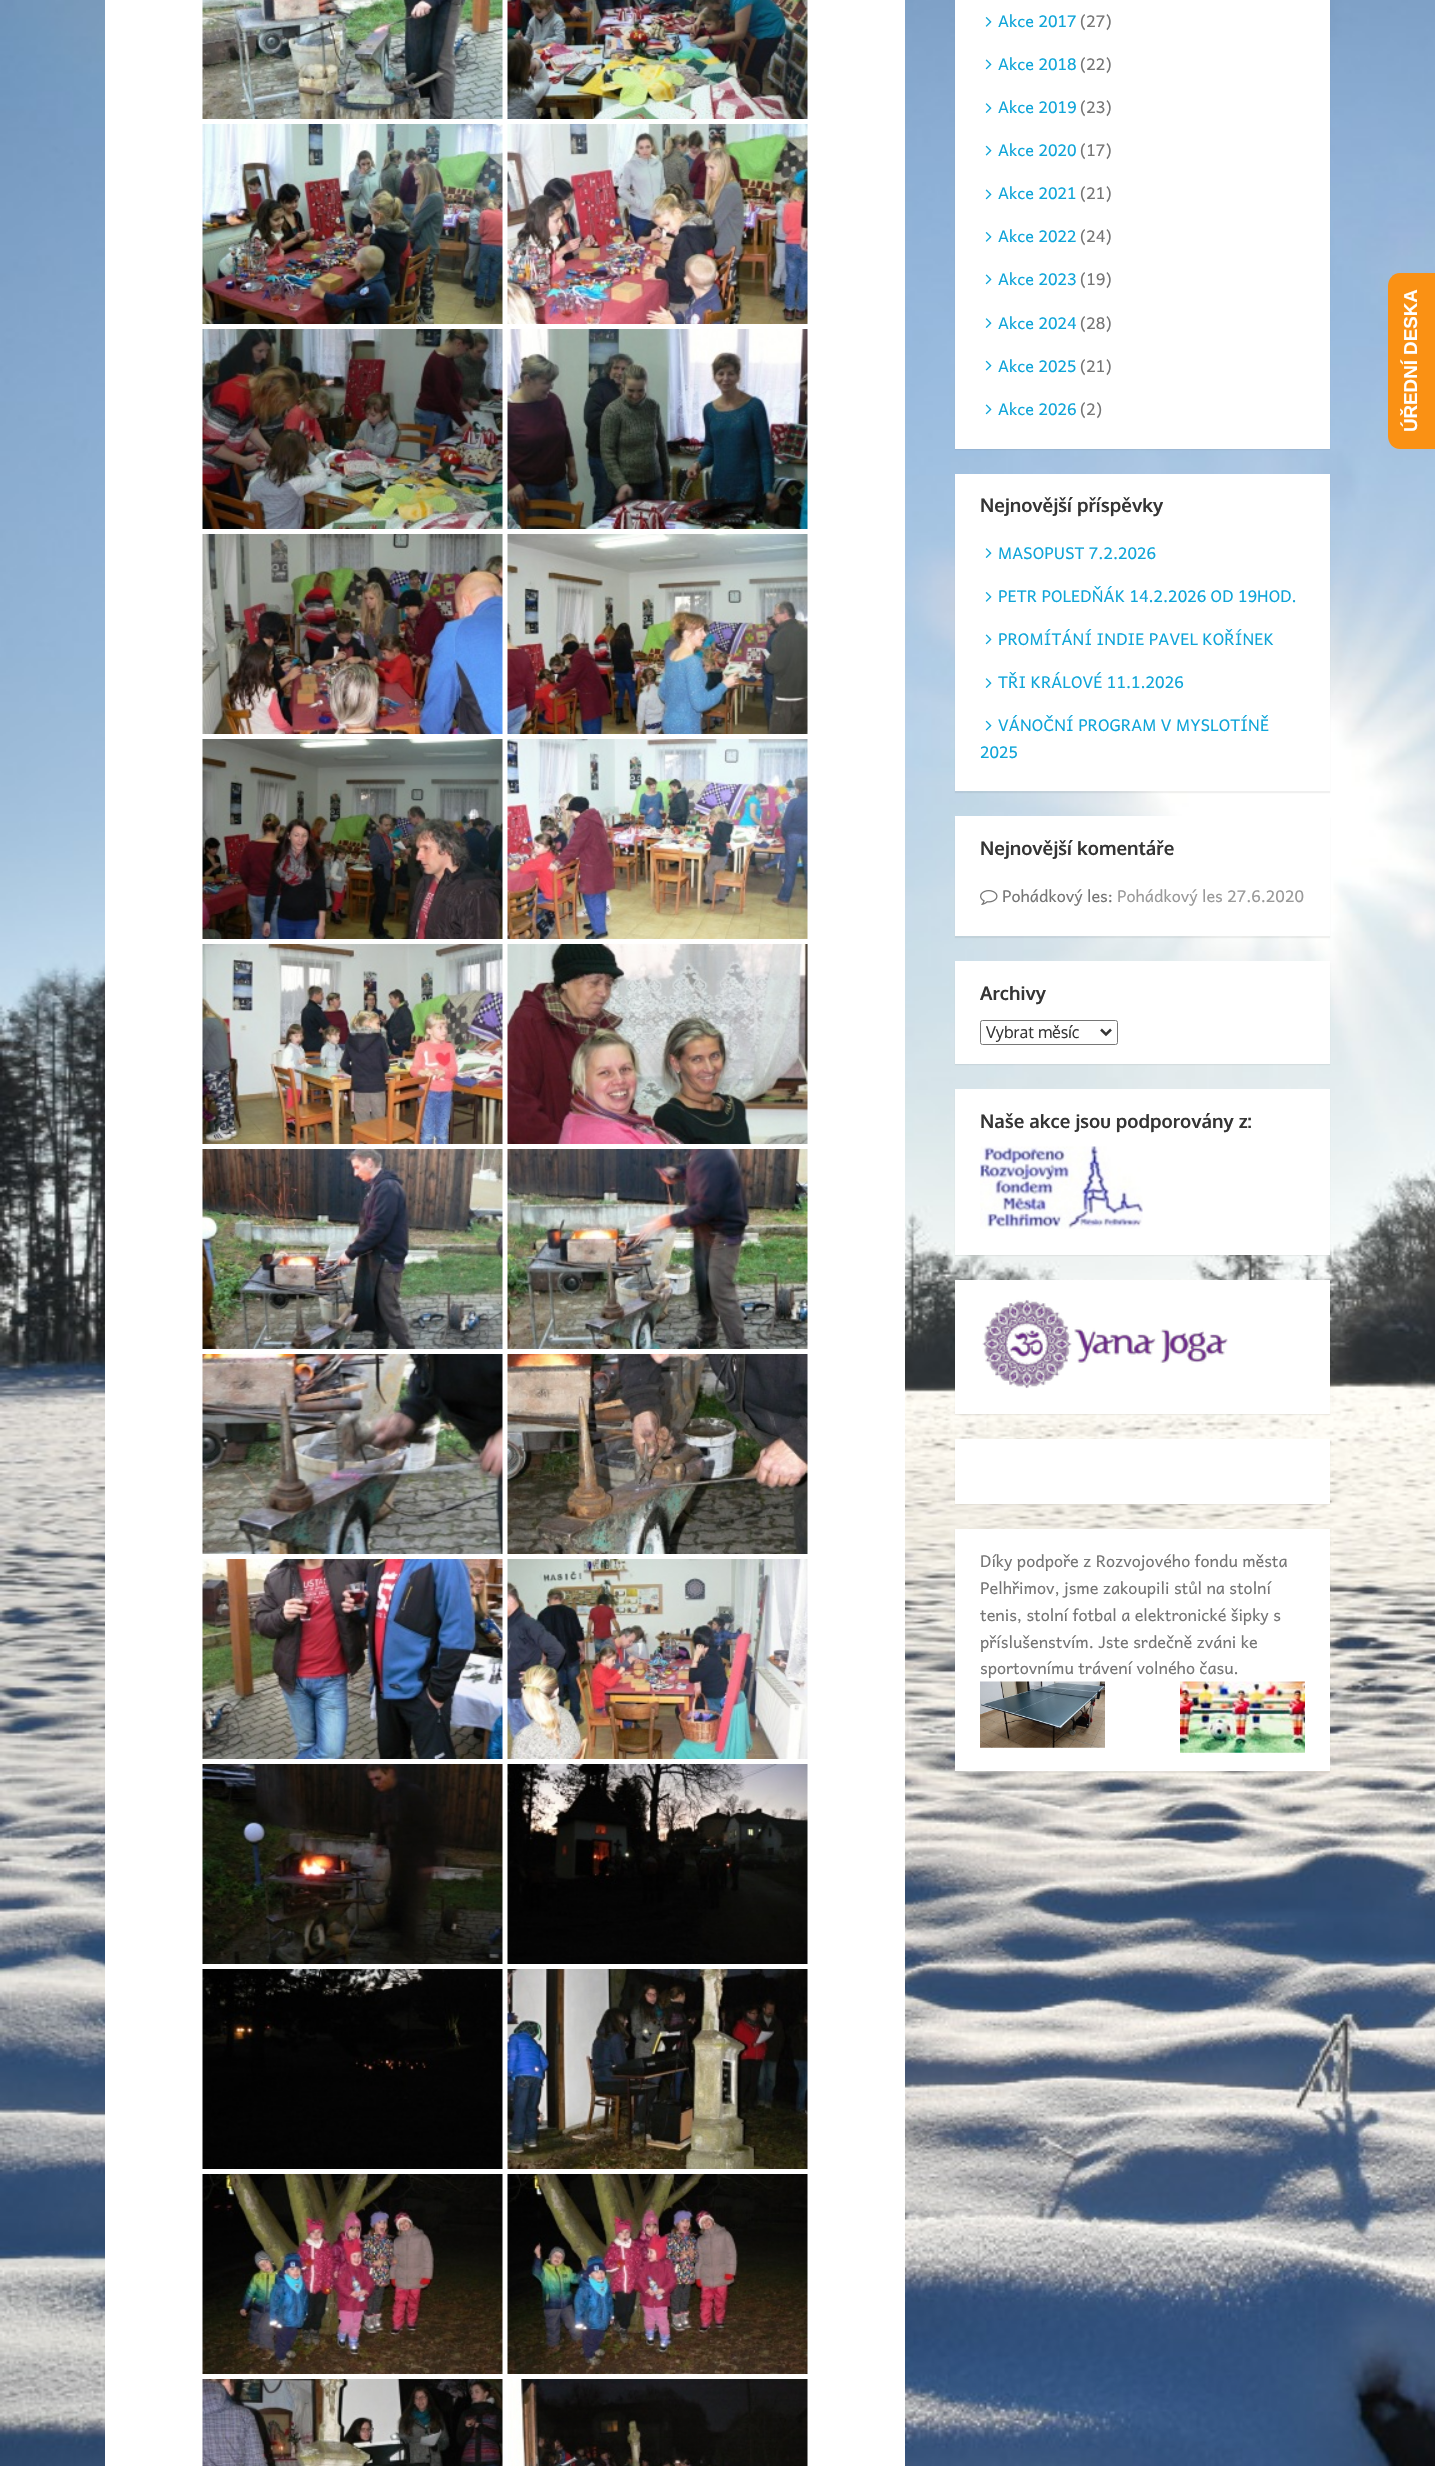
#include "include/core/SkBlurTypes.h"
#include "include/core/SkCanvas.h"
#include "include/core/SkData.h"
#include "include/core/SkFont.h"
#include "include/core/SkFontMgr.h"
#include "include/core/SkImage.h"
#include "include/core/SkMaskFilter.h"
#include "include/core/SkPaint.h"
#include "include/core/SkPathBuilder.h"
#include "include/core/SkTextBlob.h"
#include "include/effects/SkDashPathEffect.h"
#include "include/effects/SkGradientShader.h"
#include "include/utils/SkParsePath.h"

extern sk_sp<SkFontMgr> fontMgr;

void draw(SkCanvas* canvas) {
    SkPaint p;
    p.setAntiAlias(true);
    auto font = [&](const char* family, int weight, float size, bool italic = false) {
        SkFontStyle style(weight, SkFontStyle::kNormal_Width,
            italic ? SkFontStyle::kItalic_Slant : SkFontStyle::kUpright_Slant);
        SkFont result(fontMgr->matchFamilyStyle(family, style), size);
        result.setSubpixel(true);
        return result;
    };
    auto drawPhoto = [&](const char* path, float l, float t, float r, float b) {
        auto image = SkImages::DeferredFromEncodedData(SkData::MakeFromFileName(path));
        canvas->drawImageRect(image, SkRect::MakeLTRB(l, t, r, b), SkSamplingOptions());
    };
    canvas->clear(0xFFFFFFFF);
    drawPhoto("media/1.png", 0, 0, 1435, 2466);
    p.setColor(0xFFFFFFFF);
    canvas->drawRect(SkRect::MakeLTRB(105, 0, 905, 2466), p);
    drawPhoto("media/2.png", 202, 0, 503, 119);
    drawPhoto("media/3.png", 507, 0, 808, 119);
    drawPhoto("media/4.png", 202, 124, 503, 324);
    drawPhoto("media/5.png", 507, 124, 808, 324);
    drawPhoto("media/6.png", 202, 329, 503, 529);
    drawPhoto("media/7.png", 507, 329, 808, 529);
    drawPhoto("media/8.png", 202, 534, 503, 734);
    drawPhoto("media/9.png", 507, 534, 808, 734);
    drawPhoto("media/10.png", 202, 739, 503, 939);
    drawPhoto("media/11.png", 507, 739, 808, 939);
    drawPhoto("media/12.png", 202, 944, 503, 1144);
    drawPhoto("media/13.png", 507, 944, 808, 1144);
    drawPhoto("media/14.png", 202, 1149, 503, 1349);
    drawPhoto("media/15.png", 507, 1149, 808, 1349);
    drawPhoto("media/16.png", 202, 1354, 503, 1554);
    drawPhoto("media/17.png", 507, 1354, 808, 1554);
    drawPhoto("media/18.png", 202, 1559, 503, 1759);
    drawPhoto("media/19.png", 507, 1559, 808, 1759);
    drawPhoto("media/20.png", 202, 1764, 503, 1964);
    drawPhoto("media/21.png", 507, 1764, 808, 1964);
    drawPhoto("media/22.png", 202, 1969, 503, 2169);
    drawPhoto("media/23.png", 507, 1969, 808, 2169);
    drawPhoto("media/24.png", 202, 2174, 503, 2374);
    drawPhoto("media/25.png", 507, 2174, 808, 2374);
    drawPhoto("media/26.png", 202, 2379, 503, 2466);
    drawPhoto("media/27.png", 508, 2379, 808, 2466);
    p.setColor(0x0F000000);
    p.setMaskFilter(SkMaskFilter::MakeBlur(kNormal_SkBlurStyle, 0.5f));
    canvas->drawRect(SkRect::MakeLTRB(955, -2, 1330, 450), p);
    p.setMaskFilter(nullptr);
    p.setColor(0xFFFFFFFF);
    canvas->drawRect(SkRect::MakeLTRB(955, 0, 1330, 449), p);
    drawPhoto("media/28.png", 985, 17, 992, 27);
    auto font1 = font("Andika", 400, 16.25f);
    p.setColor(0xFF0FA5D9);
    canvas->drawString("Akce 2017", 998, 27, font1, p);
    p.setColor(0xFF757575);
    canvas->drawString("(27)", 1080, 27, font1, p);
    drawPhoto("media/29.png", 985, 59, 992, 70);
    p.setColor(0xFF0FA5D9);
    canvas->drawString("Akce 2018", 998, 70, font1, p);
    p.setColor(0xFF757575);
    canvas->drawString("(22)", 1080, 70, font1, p);
    drawPhoto("media/30.png", 985, 103, 992, 113);
    p.setColor(0xFF0FA5D9);
    canvas->drawString("Akce 2019", 998, 113, font1, p);
    p.setColor(0xFF757575);
    canvas->drawString("(23)", 1080, 113, font1, p);
    drawPhoto("media/31.png", 985, 145, 992, 156);
    p.setColor(0xFF0FA5D9);
    canvas->drawString("Akce 2020", 998, 156, font1, p);
    p.setColor(0xFF757575);
    canvas->drawString("(17)", 1080, 156, font1, p);
    drawPhoto("media/29.png", 985, 189, 992, 200);
    p.setColor(0xFF0FA5D9);
    canvas->drawString("Akce 2021", 998, 199, font1, p);
    p.setColor(0xFF757575);
    canvas->drawString("(21)", 1080, 199, font1, p);
    drawPhoto("media/28.png", 985, 232, 992, 242);
    p.setColor(0xFF0FA5D9);
    canvas->drawString("Akce 2022", 998, 242, font1, p);
    p.setColor(0xFF757575);
    canvas->drawString("(24)", 1080, 242, font1, p);
    drawPhoto("media/29.png", 985, 274, 992, 285);
    p.setColor(0xFF0FA5D9);
    canvas->drawString("Akce 2023", 998, 285, font1, p);
    p.setColor(0xFF757575);
    canvas->drawString("(19)", 1080, 285, font1, p);
    drawPhoto("media/30.png", 985, 318, 992, 328);
    p.setColor(0xFF0FA5D9);
    canvas->drawString("Akce 2024", 998, 329, font1, p);
    p.setColor(0xFF757575);
    canvas->drawString("(28)", 1080, 329, font1, p);
    drawPhoto("media/31.png", 985, 360, 992, 371);
    p.setColor(0xFF0FA5D9);
    canvas->drawString("Akce 2025", 998, 372, font1, p);
    p.setColor(0xFF757575);
    canvas->drawString("(21)", 1080, 372, font1, p);
    drawPhoto("media/29.png", 985, 404, 992, 415);
    p.setColor(0xFF0FA5D9);
    canvas->drawString("Akce 2026", 998, 415, font1, p);
    p.setColor(0xFF757575);
    canvas->drawString("(2)", 1080, 415, font1, p);
    p.setColor(0x0F000000);
    p.setMaskFilter(SkMaskFilter::MakeBlur(kNormal_SkBlurStyle, 0.5f));
    canvas->drawRect(SkRect::MakeLTRB(955, 475, 1330, 793), p);
    p.setMaskFilter(nullptr);
    p.setColor(0xFFFFFFFF);
    canvas->drawRect(SkRect::MakeLTRB(955, 474, 1330, 791), p);
    auto font2 = font("Oxygen", 700, 18.75f);
    p.setColor(0xFF353535);
    canvas->drawString("Nejnovější příspěvky", 980, 512, font2, p);
    drawPhoto("media/30.png", 985, 548, 992, 558);
    p.setColor(0xFF0FA5D9);
    canvas->drawString("MASOPUST 7.2.2026", 998, 559, font1, p);
    drawPhoto("media/28.png", 985, 592, 992, 602);
    canvas->drawString("PETR POLEDŇÁK 14.2.2026 OD 19HOD.", 998, 602, font1, p);
    drawPhoto("media/29.png", 985, 634, 992, 645);
    canvas->drawString("PROMÍTÁNÍ INDIE PAVEL KOŘÍNEK", 998, 645, font1, p);
    drawPhoto("media/30.png", 985, 678, 992, 688);
    canvas->drawString("TŘI KRÁLOVÉ 11.1.2026", 998, 688, font1, p);
    drawPhoto("media/31.png", 985, 720, 992, 731);
    canvas->drawString("VÁNOČNÍ PROGRAM V MYSLOTÍNĚ", 998, 731, font1, p);
    canvas->drawString("2025", 980, 758, font1, p);
    p.setColor(0x0F000000);
    p.setMaskFilter(SkMaskFilter::MakeBlur(kNormal_SkBlurStyle, 0.5f));
    canvas->drawRect(SkRect::MakeLTRB(955, 818, 1330, 938), p);
    p.setMaskFilter(nullptr);
    p.setColor(0xFFFFFFFF);
    canvas->drawRect(SkRect::MakeLTRB(955, 816, 1330, 936), p);
    p.setColor(0xFF353535);
    canvas->drawString("Nejnovější komentáře", 980, 855, font2, p);
    drawPhoto("media/32.png", 980, 890, 998, 905);
    p.setColor(0xFF757575);
    canvas->drawString("Pohádkový les:", 1002, 902, font1, p);
    p.setColor(0xFF999999);
    canvas->drawString("Pohádkový les 27.6.2020", 1117, 902, font1, p);
    p.setColor(0x0F000000);
    p.setMaskFilter(SkMaskFilter::MakeBlur(kNormal_SkBlurStyle, 0.5f));
    canvas->drawRect(SkRect::MakeLTRB(955, 963, 1330, 1065), p);
    p.setMaskFilter(nullptr);
    p.setColor(0xFFFFFFFF);
    canvas->drawRect(SkRect::MakeLTRB(955, 961, 1330, 1064), p);
    p.setColor(0xFF353535);
    canvas->drawString("Archivy", 980, 1000, font2, p);
    p.setStyle(SkPaint::kStroke_Style);
    p.setStrokeWidth(1);
    p.setColor(0xFF767676);
    canvas->drawRoundRect(SkRect::MakeLTRB(980.5f, 1020.5f, 1117.5f, 1044.5f), 2, 2, p);
    p.setStrokeWidth(2.5f);
    p.setColor(0xFF353535);
    canvas->drawPath(SkPathBuilder().moveTo(1101, 1029.5f).lineTo(1106, 1034.5f).lineTo(1111, 1029.5f).detach(), p);
    auto font3 = font("Oxygen", 400, 16.25f);
    p.setStyle(SkPaint::kFill_Style);
    canvas->drawString("Vybrat měsíc", 986, 1038, font3, p);
    p.setColor(0x0F000000);
    p.setMaskFilter(SkMaskFilter::MakeBlur(kNormal_SkBlurStyle, 0.5f));
    canvas->drawRect(SkRect::MakeLTRB(955, 1090, 1330, 1256), p);
    p.setMaskFilter(nullptr);
    p.setColor(0xFFFFFFFF);
    canvas->drawRect(SkRect::MakeLTRB(955, 1089, 1330, 1255), p);
    p.setColor(0xFF353535);
    canvas->drawString("Naše akce jsou podporovány z:", 980, 1128, font2, p);
    drawPhoto("media/33.png", 980, 1146, 1143, 1229);
    p.setColor(0x0F000000);
    p.setMaskFilter(SkMaskFilter::MakeBlur(kNormal_SkBlurStyle, 0.5f));
    canvas->drawRect(SkRect::MakeLTRB(955, 1281, 1330, 1415), p);
    p.setMaskFilter(nullptr);
    p.setColor(0xFFFFFFFF);
    canvas->drawRect(SkRect::MakeLTRB(955, 1280, 1330, 1414), p);
    drawPhoto("media/34.png", 982, 1299, 1228, 1389);
    p.setColor(0x0F000000);
    p.setMaskFilter(SkMaskFilter::MakeBlur(kNormal_SkBlurStyle, 0.5f));
    canvas->drawRect(SkRect::MakeLTRB(955, 1440, 1330, 1505), p);
    p.setMaskFilter(nullptr);
    p.setColor(0xFFFFFFFF);
    canvas->drawRect(SkRect::MakeLTRB(955, 1439, 1330, 1504), p);
    p.setColor(0x0F000000);
    p.setMaskFilter(SkMaskFilter::MakeBlur(kNormal_SkBlurStyle, 0.5f));
    canvas->drawRect(SkRect::MakeLTRB(955, 1530, 1330, 1773), p);
    p.setMaskFilter(nullptr);
    p.setColor(0xFFFFFFFF);
    canvas->drawRect(SkRect::MakeLTRB(955, 1529, 1330, 1771), p);
    p.setColor(0xFF757575);
    {
        const struct { const char* s; float x, y; } items[] = {
            {"Díky podpoře z Rozvojového fondu města", 980, 1567},
            {"Pelhřimov, jsme zakoupili stůl na stolní", 980, 1594},
            {"tenis, stolní fotbal a elektronické šipky s", 980, 1621},
            {"příslušenstvím. Jste srdečně zváni ke", 980, 1648},
            {"sportovnímu trávení volného času.", 980, 1674},
        };
        for (auto [s, x, y] : items) {
            canvas->drawString(s, x, y, font1, p);
        }
    }
    drawPhoto("media/35.png", 980, 1681, 1105, 1748);
    drawPhoto("media/36.png", 1180, 1681, 1305, 1753);
    p.setColor(0xFFFA9114);
    canvas->drawPath(SkPathBuilder().moveTo(1388, 436).lineTo(1388, 286).cubicTo(1388, 279, 1393, 273, 1400, 273).lineTo(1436, 273).lineTo(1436, 449).lineTo(1400, 449).cubicTo(1393, 449, 1388, 443, 1388, 436).close().detach(), p);
    auto font4 = font("Liberation Sans", 700, 18.75f);
    p.setColor(0xFFFFFFFF);
    canvas->save();
    canvas->rotate(-90, 1417, 432);
    canvas->drawString("ÚŘEDNÍ DESKA", 1417, 432, font4, p);
    canvas->restore();
}
